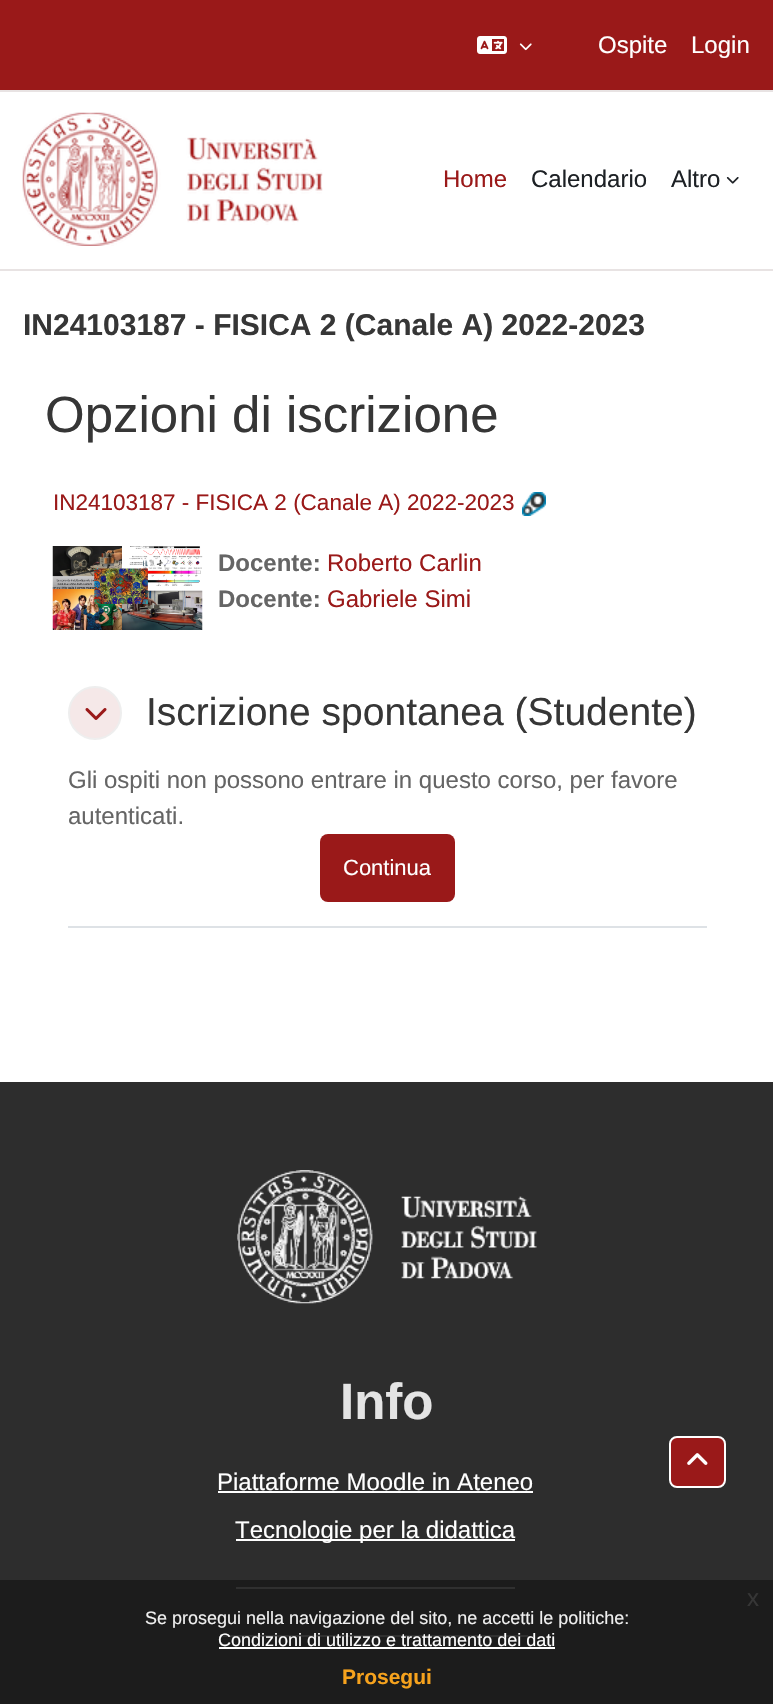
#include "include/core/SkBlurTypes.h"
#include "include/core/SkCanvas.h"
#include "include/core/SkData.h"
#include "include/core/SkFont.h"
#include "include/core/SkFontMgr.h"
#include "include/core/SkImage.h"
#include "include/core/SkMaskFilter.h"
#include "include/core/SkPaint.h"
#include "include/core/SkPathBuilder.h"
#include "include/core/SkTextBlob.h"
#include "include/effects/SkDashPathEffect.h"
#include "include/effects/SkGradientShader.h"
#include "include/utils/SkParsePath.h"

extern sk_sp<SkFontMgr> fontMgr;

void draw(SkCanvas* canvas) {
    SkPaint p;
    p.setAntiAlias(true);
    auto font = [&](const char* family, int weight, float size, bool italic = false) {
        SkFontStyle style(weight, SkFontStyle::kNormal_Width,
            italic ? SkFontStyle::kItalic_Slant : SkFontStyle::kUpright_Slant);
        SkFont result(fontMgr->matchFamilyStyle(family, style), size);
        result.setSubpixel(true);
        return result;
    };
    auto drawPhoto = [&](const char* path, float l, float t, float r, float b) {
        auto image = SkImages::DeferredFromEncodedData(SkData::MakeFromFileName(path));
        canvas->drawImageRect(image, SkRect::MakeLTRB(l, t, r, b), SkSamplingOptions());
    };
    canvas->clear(0xFFFFFFFF);
    p.setColor(0xFF9A1919);
    canvas->drawRect(SkRect::MakeLTRB(0, 0, 773, 90), p);
    p.setColor(0xFFE8E3E3);
    canvas->drawRect(SkRect::MakeLTRB(0, 90, 773, 92), p);
    drawPhoto("media/1.png", 477, 36, 507, 54);
    drawPhoto("media/2.png", 519, 43, 532, 51);
    auto font1 = font("Liberation Sans", 400, 24);
    p.setColor(0xFFFFFFFF);
    canvas->drawString("Ospite", 598, 53, font1, p);
    canvas->drawString("Login", 691, 53, font1, p);
    p.setColor(0xFFE8E3E3);
    canvas->drawRect(SkRect::MakeLTRB(0, 269, 773, 271), p);
    drawPhoto("media/3.png", 22, 112, 323, 246);
    p.setColor(0xFF9A1919);
    canvas->drawString("Home", 443, 187, font1, p);
    p.setColor(0xFF1D2125);
    canvas->drawString("Calendario", 531, 187, font1, p);
    canvas->drawString("Altro", 671, 187, font1, p);
    drawPhoto("media/4.png", 726, 177, 739, 184);
    auto font2 = font("Liberation Sans", 700, 30);
    p.setColor(0xFF363636);
    canvas->drawString("IN24103187 - FISICA 2 (Canale A) 2022-2023", 23, 335, font2, p);
    auto font3 = font("Liberation Sans", 400, 51);
    canvas->drawString("Opzioni di iscrizione", 45, 432, font3, p);
    auto font4 = font("Liberation Sans", 400, 22.5f);
    p.setColor(0xFF9A1919);
    canvas->drawString("IN24103187 - FISICA 2 (Canale A) 2022-2023", 53, 510, font4, p);
    drawPhoto("media/5.png", 522, 492, 546, 516);
    drawPhoto("media/6.png", 52, 546, 203, 630);
    auto font5 = font("Liberation Sans", 700, 24);
    p.setColor(0xFF656565);
    canvas->drawString("Docente:", 218, 571, font5, p);
    p.setColor(0xFF9A1919);
    canvas->drawString("Roberto Carlin", 327, 571, font1, p);
    p.setColor(0xFF656565);
    canvas->drawString("Docente:", 218, 607, font5, p);
    p.setColor(0xFF9A1919);
    canvas->drawString("Gabriele Simi", 327, 607, font1, p);
    p.setColor(0xFFDEE2E6);
    canvas->drawRect(SkRect::MakeLTRB(68, 926, 707, 928), p);
    p.setColor(0xFFF5E8E8);
    canvas->drawCircle(95, 713, 26, p);
    p.setStyle(SkPaint::kStroke_Style);
    p.setStrokeWidth(2);
    p.setColor(0xFFEEEEEE);
    canvas->drawCircle(95, 713, 26, p);
    drawPhoto("media/7.png", 85, 708, 107, 720);
    auto font6 = font("Liberation Sans", 400, 39);
    p.setStyle(SkPaint::kFill_Style);
    p.setColor(0xFF363636);
    canvas->drawString("Iscrizione spontanea (Studente)", 146, 725, font6, p);
    p.setColor(0xFF656565);
    canvas->drawString("Gli ospiti non possono entrare in questo corso, per favore", 68, 788, font1, p);
    canvas->drawString("autenticati.", 68, 824, font1, p);
    p.setColor(0xFF9A1919);
    canvas->drawRoundRect(SkRect::MakeLTRB(320, 834, 455, 902), 8, 8, p);
    auto font7 = font("Liberation Sans", 400, 22);
    p.setColor(0xFFFFFFFF);
    canvas->drawString("Continua", 343, 875, font7, p);
    p.setColor(0xFF2D2D2D);
    canvas->drawRect(SkRect::MakeLTRB(0, 1082, 773, 1704), p);
    drawPhoto("media/8.png", 237, 1170, 537, 1304);
    auto font8 = font("Liberation Sans", 700, 51);
    p.setColor(0xFFE4E4E4);
    canvas->drawString("Info", 340, 1419, font8, p);
    p.setColor(0xFFFFFFFF);
    canvas->drawString("Piattaforme Moodle in Ateneo", 217, 1490, font1, p);
    canvas->drawRect(SkRect::MakeLTRB(218, 1491, 533, 1493), p);
    canvas->drawRect(SkRect::MakeLTRB(236, 1539, 515, 1541), p);
    canvas->drawString("Tecnologie per la didattica", 235, 1538, font1, p);
    canvas->drawRect(SkRect::MakeLTRB(236, 1587, 515, 1589), p);
    canvas->drawRect(SkRect::MakeLTRB(222, 1635, 528, 1637), p);
    p.setColor(0xFF9A1919);
    canvas->drawRoundRect(SkRect::MakeLTRB(670, 1437, 725, 1487), 7, 7, p);
    p.setStyle(SkPaint::kStroke_Style);
    p.setColor(0xFFFFFFFF);
    canvas->drawRoundRect(SkRect::MakeLTRB(670, 1437, 725, 1487), 7, 7, p);
    drawPhoto("media/9.png", 687, 1453, 708, 1465);
    p.setStyle(SkPaint::kFill_Style);
    p.setColor(0xE6191919);
    canvas->drawRect(SkRect::MakeLTRB(0, 1580, 773, 1704), p);
    p.setColor(0xFF363636);
    canvas->drawString("x", 747, 1606, font1, p);
    auto font9 = font("Liberation Sans", 400, 18);
    p.setColor(0xFFEFEFEF);
    canvas->drawString("Se prosegui nella navigazione del sito, ne accetti le politiche:", 145, 1624, font9, p);
    p.setColor(0xFFFFFFFF);
    canvas->drawString("Condizioni di utilizzo e trattamento dei dati", 218, 1646, font9, p);
    canvas->drawRect(SkRect::MakeLTRB(219, 1647, 555, 1649), p);
    auto font10 = font("Liberation Sans", 700, 21);
    p.setColor(0xFFF6A21D);
    canvas->drawString("Prosegui", 342, 1684, font10, p);
}
